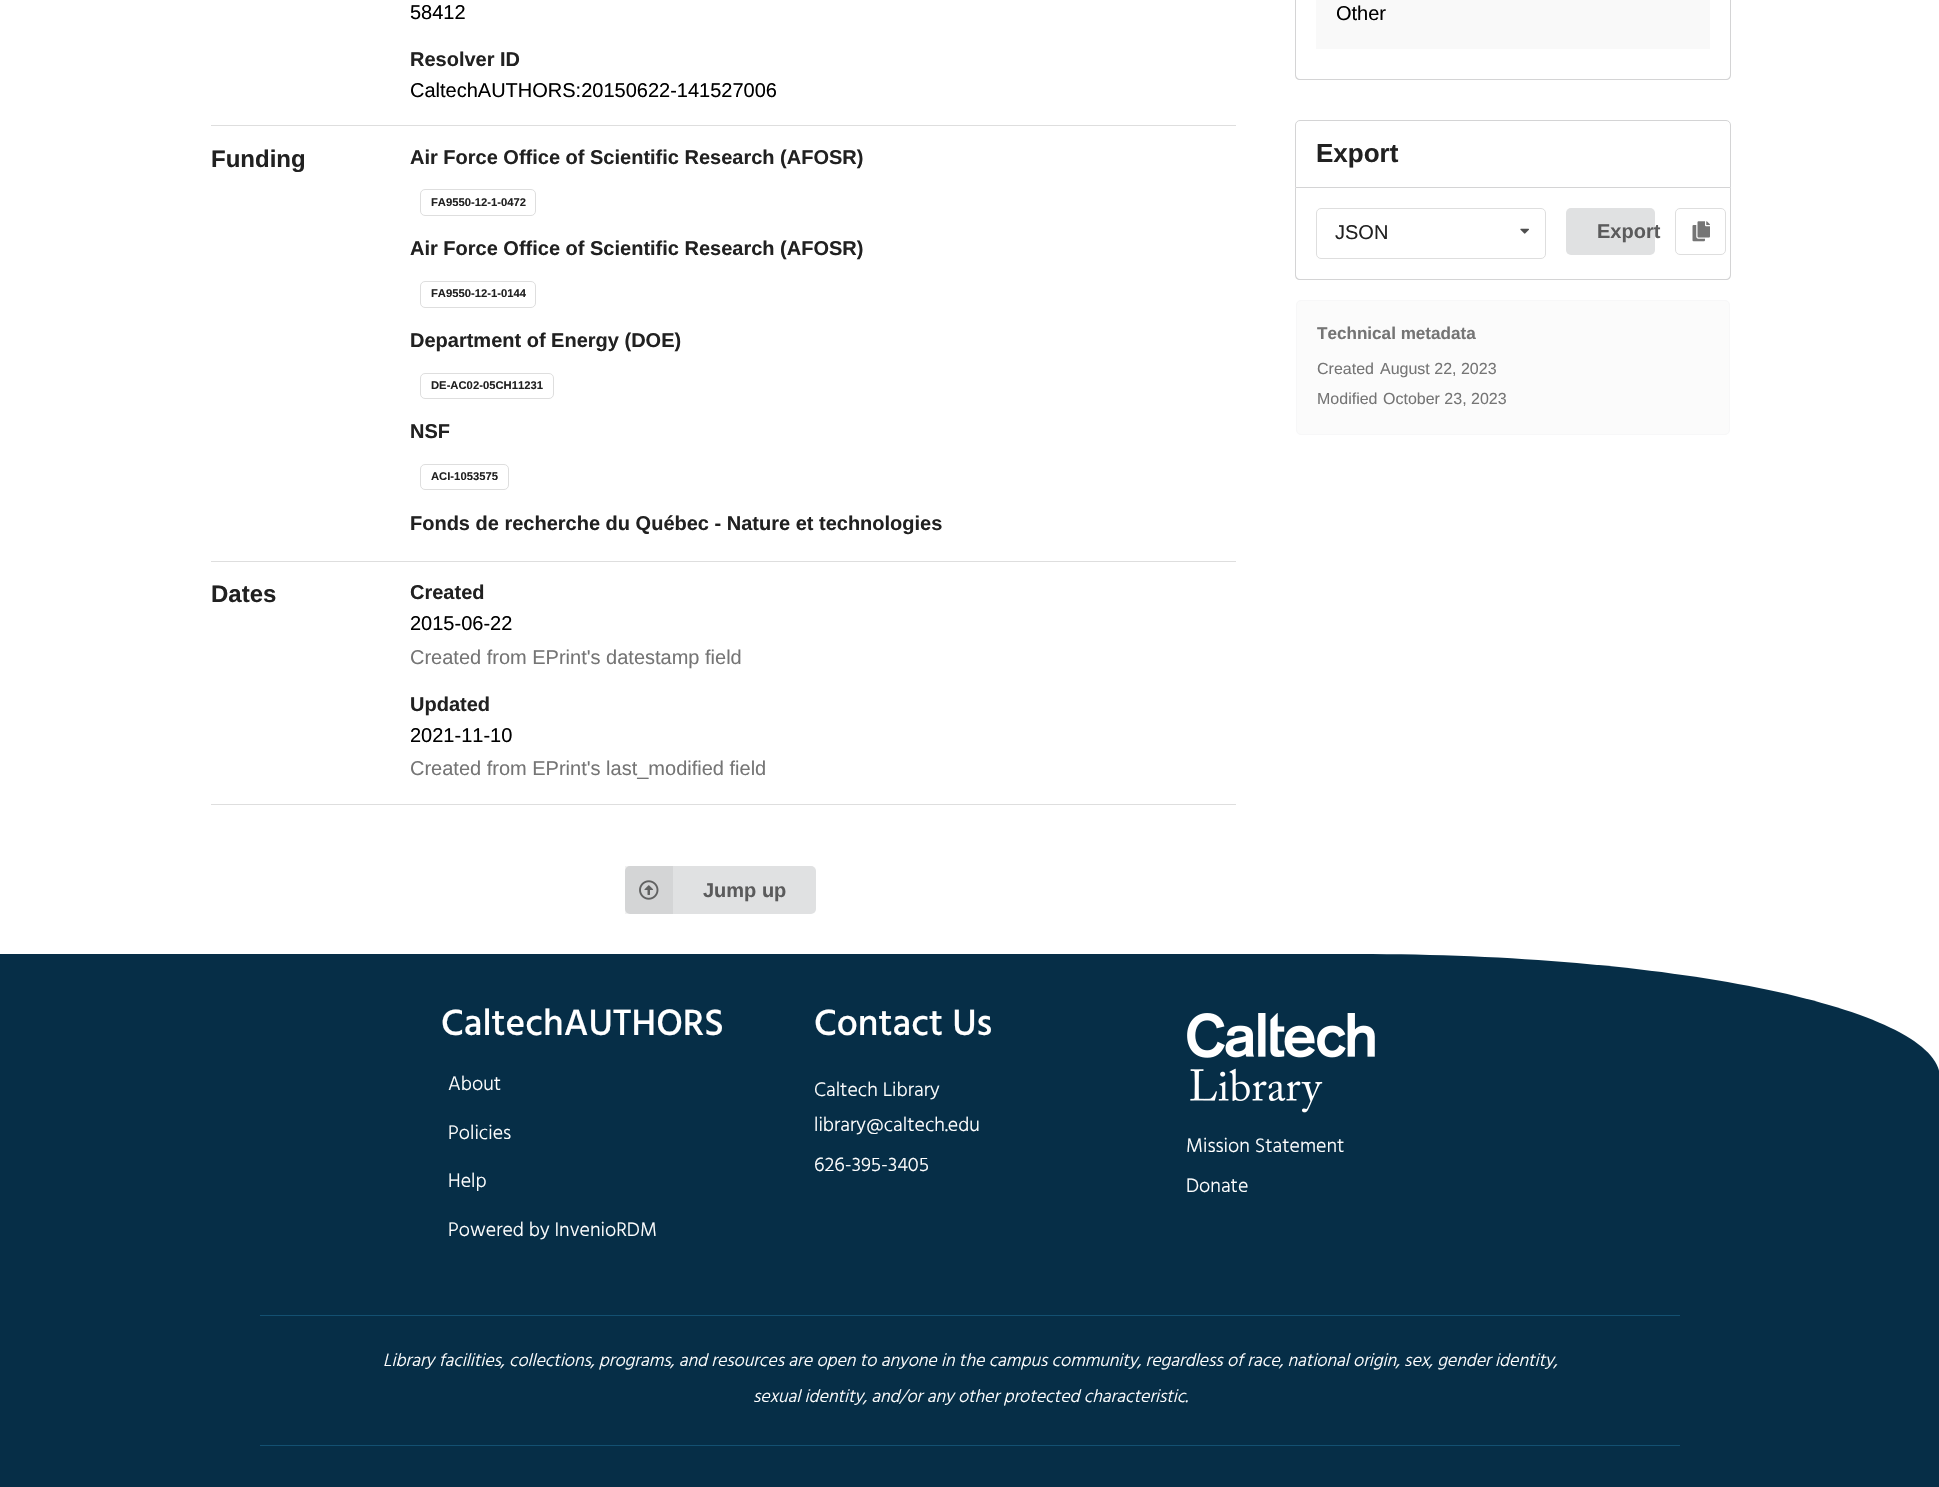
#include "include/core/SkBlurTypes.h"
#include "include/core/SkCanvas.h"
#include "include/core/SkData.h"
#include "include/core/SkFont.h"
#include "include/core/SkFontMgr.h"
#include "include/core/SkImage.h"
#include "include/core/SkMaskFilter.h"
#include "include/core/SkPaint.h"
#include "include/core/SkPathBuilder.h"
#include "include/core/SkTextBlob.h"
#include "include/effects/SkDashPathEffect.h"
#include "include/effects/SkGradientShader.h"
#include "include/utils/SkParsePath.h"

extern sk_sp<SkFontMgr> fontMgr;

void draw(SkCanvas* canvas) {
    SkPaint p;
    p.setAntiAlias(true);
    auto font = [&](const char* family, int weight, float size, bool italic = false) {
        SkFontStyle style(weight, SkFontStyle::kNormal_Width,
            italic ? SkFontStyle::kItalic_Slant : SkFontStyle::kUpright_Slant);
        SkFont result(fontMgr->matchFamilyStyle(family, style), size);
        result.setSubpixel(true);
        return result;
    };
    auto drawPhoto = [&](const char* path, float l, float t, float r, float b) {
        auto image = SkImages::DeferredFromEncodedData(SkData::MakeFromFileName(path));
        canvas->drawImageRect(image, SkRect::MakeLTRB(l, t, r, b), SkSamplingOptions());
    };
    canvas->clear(0xFFFFFFFF);
    auto font1 = font("Liberation Sans", 400, 20);
    p.setColor(0xFF000000);
    canvas->drawString("58412", 410, 19, font1, p);
    auto font2 = font("Liberation Sans", 700, 20);
    p.setColor(0xFF212121);
    canvas->drawString("Resolver ID", 410, 66, font2, p);
    p.setColor(0xFF000000);
    canvas->drawString("CaltechAUTHORS:20150622-141527006", 410, 97, font1, p);
    p.setColor(0xFFDEDEDE);
    canvas->drawRect(SkRect::MakeLTRB(211, 125, 1236, 126), p);
    auto font3 = font("Liberation Sans", 700, 24);
    p.setColor(0xFF212121);
    canvas->drawString("Funding", 211, 167, font3, p);
    canvas->drawString("Air Force Office of Scientific Research (AFOSR)", 410, 164, font2, p);
    p.setStyle(SkPaint::kStroke_Style);
    p.setStrokeWidth(1);
    p.setColor(0xFFDEDEDE);
    canvas->drawRoundRect(SkRect::MakeLTRB(420.5f, 189.5f, 535.5f, 215.5f), 4.5f, 4.5f, p);
    auto font4 = font("Liberation Sans", 700, 11.25f);
    p.setStyle(SkPaint::kFill_Style);
    p.setColor(0xFF212121);
    canvas->drawString("FA9550-12-1-0472", 431, 206, font4, p);
    canvas->drawString("Air Force Office of Scientific Research (AFOSR)", 410, 255, font2, p);
    p.setStyle(SkPaint::kStroke_Style);
    p.setColor(0xFFDEDEDE);
    canvas->drawRoundRect(SkRect::MakeLTRB(420.5f, 281.5f, 535.5f, 307.5f), 4.5f, 4.5f, p);
    p.setStyle(SkPaint::kFill_Style);
    p.setColor(0xFF212121);
    canvas->drawString("FA9550-12-1-0144", 431, 297, font4, p);
    canvas->drawString("Department of Energy (DOE)", 410, 347, font2, p);
    p.setStyle(SkPaint::kStroke_Style);
    p.setColor(0xFFDEDEDE);
    canvas->drawRoundRect(SkRect::MakeLTRB(420.5f, 373.5f, 553.5f, 398.5f), 4.5f, 4.5f, p);
    p.setStyle(SkPaint::kFill_Style);
    p.setColor(0xFF212121);
    canvas->drawString("DE-AC02-05CH11231", 431, 389, font4, p);
    canvas->drawString("NSF", 410, 438, font2, p);
    p.setStyle(SkPaint::kStroke_Style);
    p.setColor(0xFFDEDEDE);
    canvas->drawRoundRect(SkRect::MakeLTRB(420.5f, 464.5f, 508.5f, 489.5f), 4.5f, 4.5f, p);
    p.setStyle(SkPaint::kFill_Style);
    p.setColor(0xFF212121);
    canvas->drawString("ACI-1053575", 431, 480, font4, p);
    canvas->drawString("Fonds de recherche du Québec - Nature et technologies", 410, 530, font2, p);
    p.setColor(0xFFDEDEDE);
    canvas->drawRect(SkRect::MakeLTRB(211, 561, 1236, 562), p);
    p.setColor(0xFF212121);
    canvas->drawString("Dates", 211, 602, font3, p);
    canvas->drawString("Created", 410, 599, font2, p);
    p.setColor(0xFF000000);
    canvas->drawString("2015-06-22", 410, 630, font1, p);
    p.setColor(0xFF757575);
    canvas->drawString("Created from EPrint's datestamp field", 410, 664, font1, p);
    p.setColor(0xFF212121);
    canvas->drawString("Updated", 410, 711, font2, p);
    p.setColor(0xFF000000);
    canvas->drawString("2021-11-10", 410, 742, font1, p);
    p.setColor(0xFF757575);
    canvas->drawString("Created from EPrint's last_modified field", 410, 775, font1, p);
    p.setColor(0xFFDEDEDE);
    canvas->drawRect(SkRect::MakeLTRB(211, 804, 1236, 805), p);
    p.setColor(0xFFD4D4D5);
    canvas->drawPath(SkPathBuilder(SkPathFillType::kEvenOdd).moveTo(1295, -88).lineTo(1731, -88).lineTo(1731, 75).cubicTo(1731, 78, 1729, 80, 1726, 80).lineTo(1300, 80).cubicTo(1297, 80, 1295, 78, 1295, 75).close().moveTo(1296, -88).lineTo(1730, -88).lineTo(1730, 75).cubicTo(1730, 77, 1728, 79, 1726, 79).lineTo(1300, 79).cubicTo(1298, 79, 1296, 77, 1296, 75).close().detach(), p);
    p.setColor(0xFFF9F9F9);
    canvas->drawRect(SkRect::MakeLTRB(1316, 0, 1710, 49), p);
    p.setColor(0xFF000000);
    canvas->drawString("Other", 1336, 20, font1, p);
    p.setStyle(SkPaint::kStroke_Style);
    p.setColor(0xFFD4D4D5);
    canvas->drawPath(SkPathBuilder().moveTo(1300, 120.5f).lineTo(1726, 120.5f).cubicTo(1728.5f, 120.5f, 1730.5f, 122.5f, 1730.5f, 125).lineTo(1730.5f, 187.5f).lineTo(1295.5f, 187.5f).lineTo(1295.5f, 125).cubicTo(1295.5f, 122.5f, 1297.5f, 120.5f, 1300, 120.5f).close().detach(), p);
    auto font5 = font("Liberation Sans", 700, 26);
    p.setStyle(SkPaint::kFill_Style);
    p.setColor(0xFF212121);
    canvas->drawString("Export", 1316, 162, font5, p);
    p.setColor(0xFFD4D4D5);
    canvas->drawPath(SkPathBuilder(SkPathFillType::kEvenOdd).moveTo(1295, 188).lineTo(1731, 188).lineTo(1731, 275).cubicTo(1731, 278, 1729, 280, 1726, 280).lineTo(1300, 280).cubicTo(1297, 280, 1295, 278, 1295, 275).close().moveTo(1296, 188).lineTo(1730, 188).lineTo(1730, 275).cubicTo(1730, 277, 1728, 279, 1726, 279).lineTo(1300, 279).cubicTo(1298, 279, 1296, 277, 1296, 275).close().detach(), p);
    p.setStyle(SkPaint::kStroke_Style);
    p.setColor(0xFFDEDEDE);
    canvas->drawRoundRect(SkRect::MakeLTRB(1316.5f, 208.5f, 1545.5f, 258.5f), 4.5f, 4.5f, p);
    p.setStyle(SkPaint::kFill_Style);
    p.setColor(0xFF212121);
    canvas->drawString("JSON", 1335, 239, font1, p);
    drawPhoto("media/1.png", 1520, 228, 1529, 234);
    p.setColor(0xFFE0E1E2);
    canvas->drawRoundRect(SkRect::MakeLTRB(1566, 208, 1655, 255), 5, 5, p);
    p.setColor(0xFF5B5B5C);
    canvas->drawString("Export", 1597, 238, font2, p);
    p.setStyle(SkPaint::kStroke_Style);
    p.setColor(0xFFDEDEDE);
    canvas->drawRoundRect(SkRect::MakeLTRB(1675.5f, 208.5f, 1725.5f, 254.5f), 4.5f, 4.5f, p);
    drawPhoto("media/2.png", 1692, 221, 1710, 242);
    p.setStyle(SkPaint::kFill_Style);
    p.setColor(0xFFFBFBFB);
    canvas->drawRoundRect(SkRect::MakeLTRB(1296.5f, 300.5f, 1729.5f, 434.5f), 4.5f, 4.5f, p);
    p.setStyle(SkPaint::kStroke_Style);
    p.setColor(0xFFF7F7F8);
    canvas->drawRoundRect(SkRect::MakeLTRB(1296.5f, 300.5f, 1729.5f, 434.5f), 4.5f, 4.5f, p);
    auto font6 = font("Liberation Sans", 700, 17.1f);
    p.setStyle(SkPaint::kFill_Style);
    p.setColor(0xFF757575);
    canvas->drawString("Technical metadata", 1317, 339, font6, p);
    auto font7 = font("Liberation Sans", 400, 16);
    {
        const struct { const char* s; float x, y; } items[] = {
            {"Created", 1317, 374},
            {"August 22, 2023", 1380, 374},
            {"Modified", 1317, 404},
            {"October 23, 2023", 1383, 404},
        };
        for (auto [s, x, y] : items) {
            canvas->drawString(s, x, y, font7, p);
        }
    }
    p.setColor(0xFFE0E1E2);
    canvas->drawRoundRect(SkRect::MakeLTRB(625, 866, 816, 914), 5, 5, p);
    p.setColor(0x0D000000);
    canvas->drawRect(SkRect::MakeLTRB(625, 866, 673, 914), p);
    drawPhoto("media/3.png", 639, 880, 659, 900);
    p.setColor(0xFF5B5B5C);
    canvas->drawString("Jump up", 703, 897, font2, p);
    p.setColor(0xFF062E47);
    canvas->drawPath(SkPathBuilder().moveTo(0, 954).lineTo(1358, 954).cubicTo(1679, 954, 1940, 1009, 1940, 1078).lineTo(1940, 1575).lineTo(0, 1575).close().detach(), p);
    auto font8 = font("Hind", 500, 37.5f);
    p.setColor(0xFFFFFFFF);
    canvas->drawString("CaltechAUTHORS", 441, 1035, font8, p);
    auto font9 = font("Hind", 300, 20);
    {
        const struct { const char* s; float x, y; } items[] = {
            {"About", 448, 1090},
            {"Policies", 448, 1139},
            {"Help", 448, 1187},
            {"Powered by InvenioRDM", 448, 1236},
        };
        for (auto [s, x, y] : items) {
            canvas->drawString(s, x, y, font9, p);
        }
    }
    canvas->drawString("Contact Us", 814, 1035, font8, p);
    {
        const struct { const char* s; float x, y; } items[] = {
            {"Caltech Library", 814, 1096},
            {"library@caltech.edu", 814, 1131},
            {"626-395-3405", 814, 1171},
        };
        for (auto [s, x, y] : items) {
            canvas->drawString(s, x, y, font9, p);
        }
    }
    drawPhoto("media/4.png", 1187, 1013, 1375, 1113);
    canvas->drawString("Mission Statement", 1186, 1152, font9, p);
    canvas->drawString("Donate", 1186, 1192, font9, p);
    p.setColor(0xFF135071);
    canvas->drawRect(SkRect::MakeLTRB(260, 1315, 1680, 1316), p);
    canvas->drawRect(SkRect::MakeLTRB(260, 1445, 1680, 1446), p);
    auto font10 = font("Hind", 300, 18, true);
    p.setColor(0xFFFFFFFF);
    canvas->drawString("Library facilities, collections, programs, and resources are open to anyone in the campus community, regardless of race, national origin, sex, gender identity,", 383, 1366, font10, p);
    canvas->drawString("sexual identity, and/or any other protected characteristic.", 753, 1402, font10, p);
}
